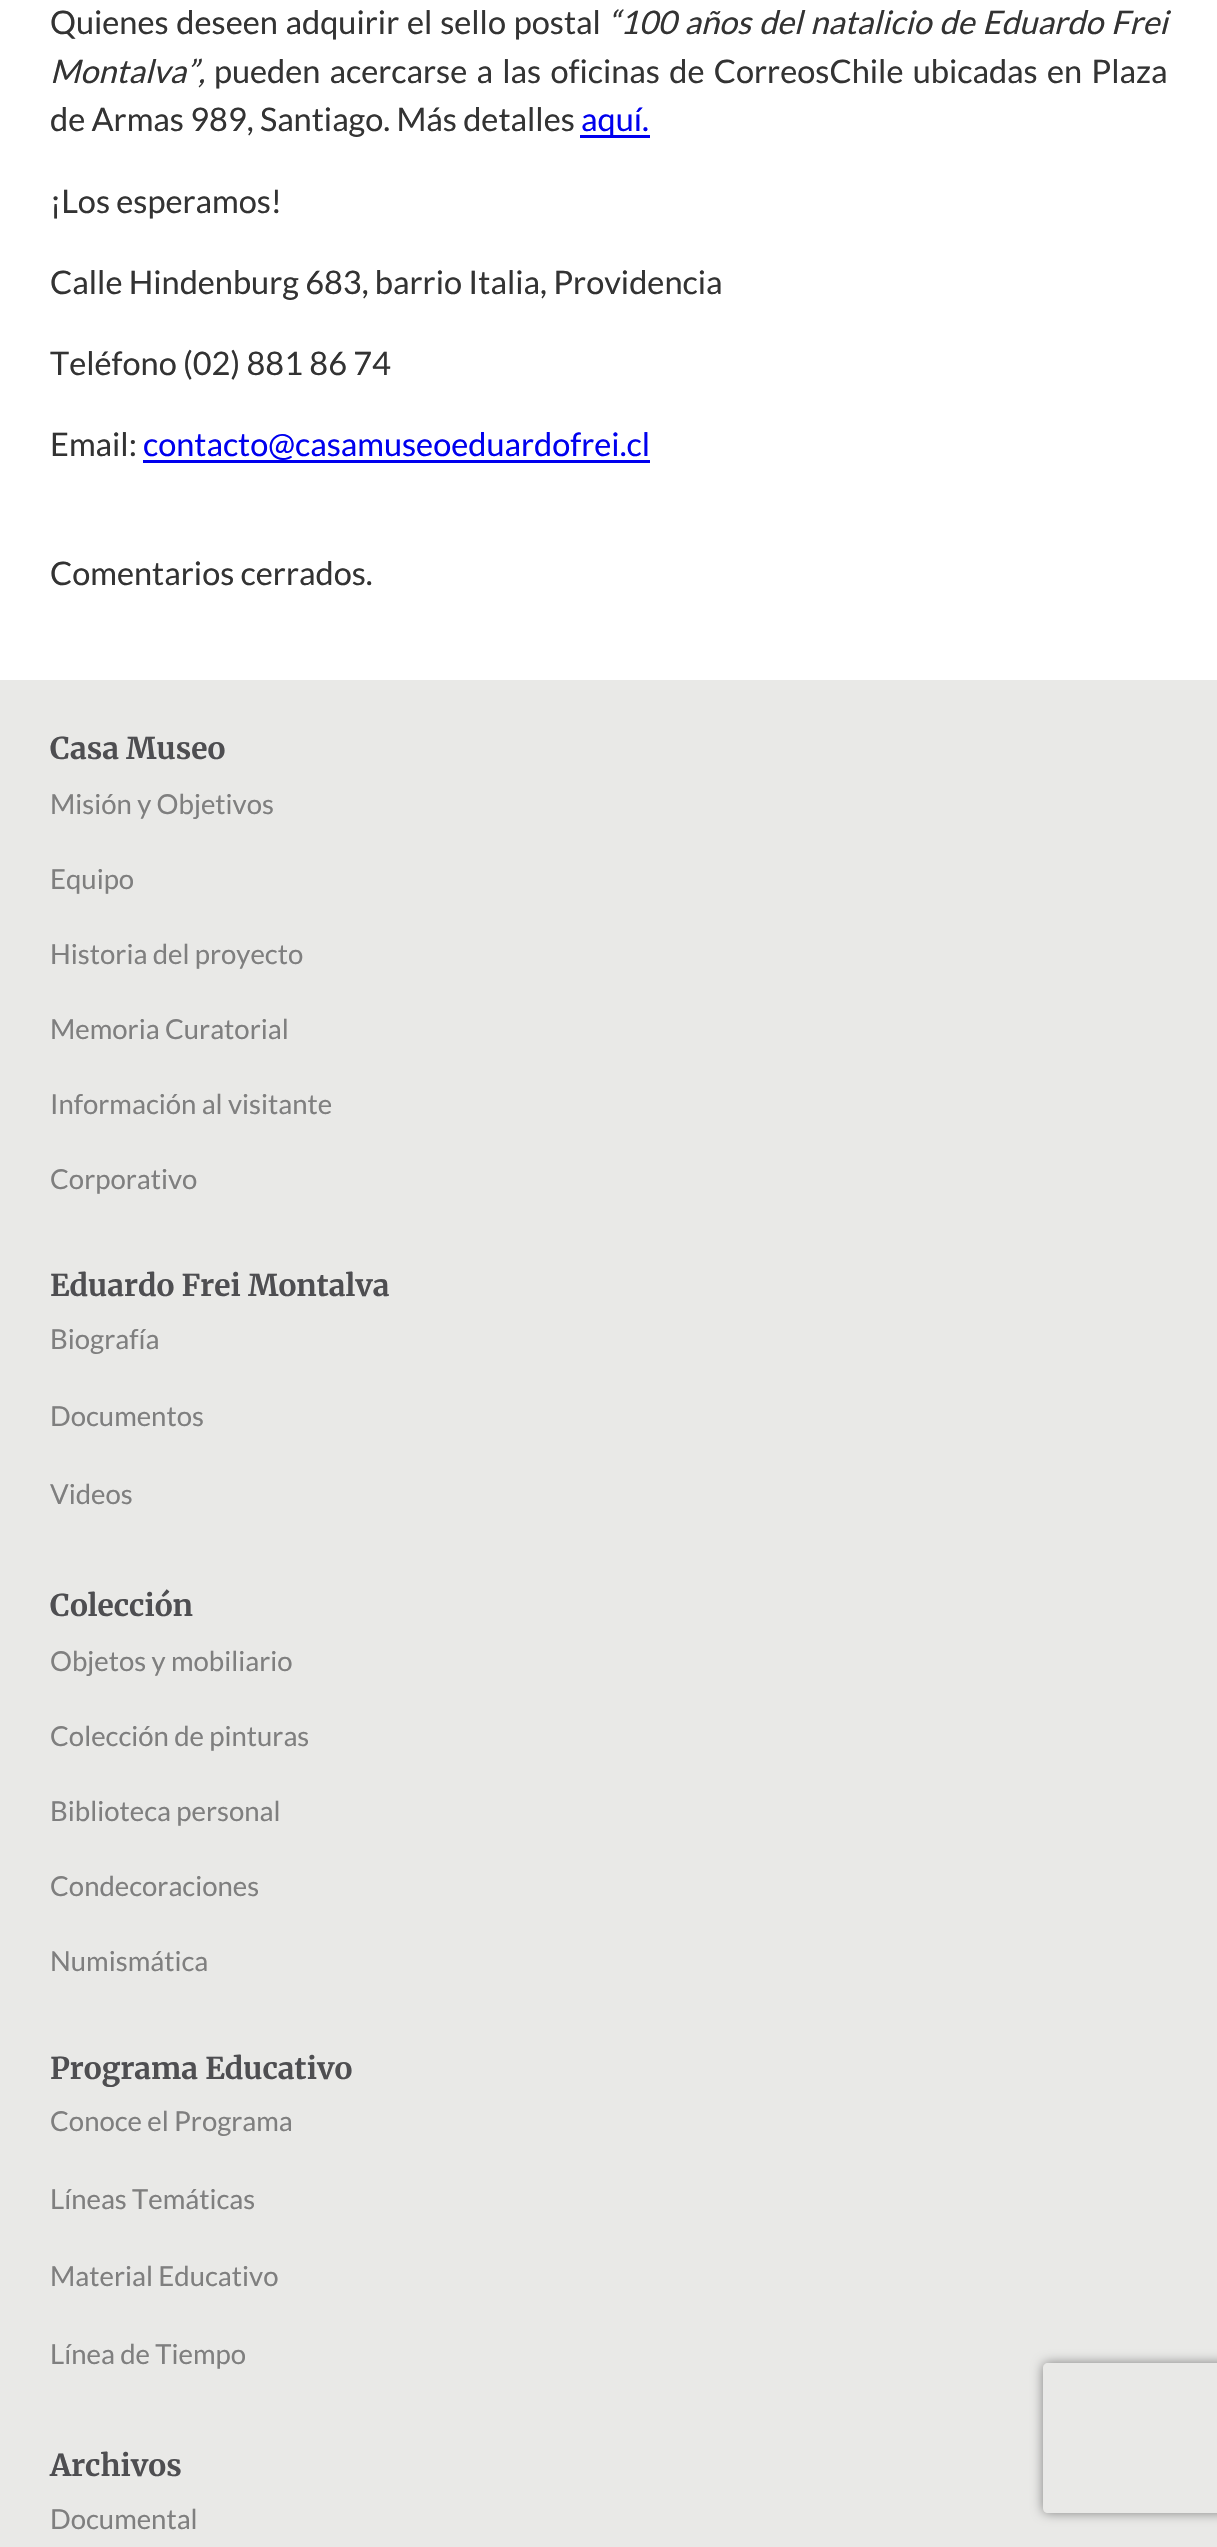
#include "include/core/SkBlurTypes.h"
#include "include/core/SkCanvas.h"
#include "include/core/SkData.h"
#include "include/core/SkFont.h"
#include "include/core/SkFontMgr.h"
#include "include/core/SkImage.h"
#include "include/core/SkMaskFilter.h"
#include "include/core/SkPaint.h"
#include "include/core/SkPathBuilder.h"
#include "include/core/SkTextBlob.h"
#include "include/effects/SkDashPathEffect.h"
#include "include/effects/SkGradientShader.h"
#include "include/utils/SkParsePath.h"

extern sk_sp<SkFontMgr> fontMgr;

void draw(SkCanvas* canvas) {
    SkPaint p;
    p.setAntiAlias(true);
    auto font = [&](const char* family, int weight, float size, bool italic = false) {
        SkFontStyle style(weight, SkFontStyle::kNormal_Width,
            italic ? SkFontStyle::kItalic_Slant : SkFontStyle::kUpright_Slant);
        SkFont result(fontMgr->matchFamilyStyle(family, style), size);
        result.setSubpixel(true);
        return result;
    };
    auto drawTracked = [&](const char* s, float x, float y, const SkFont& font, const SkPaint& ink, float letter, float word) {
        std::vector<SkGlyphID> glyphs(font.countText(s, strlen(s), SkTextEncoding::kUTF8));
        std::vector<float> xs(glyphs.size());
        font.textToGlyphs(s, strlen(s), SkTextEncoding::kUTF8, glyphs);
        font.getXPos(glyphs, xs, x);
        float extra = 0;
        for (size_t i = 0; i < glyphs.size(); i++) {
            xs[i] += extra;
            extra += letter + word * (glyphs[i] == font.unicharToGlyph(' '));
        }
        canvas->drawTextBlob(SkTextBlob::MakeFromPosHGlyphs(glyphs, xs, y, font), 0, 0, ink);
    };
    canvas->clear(0xFFFFFFFF);
    auto font1 = font("Lato", 400, 32.5f);
    p.setColor(0xFF333333);
    drawTracked("Quienes deseen adquirir el sello postal", 50, 34, font1, p, 0, 1.5f);
    auto font2 = font("Lato", 400, 32.5f, true);
    drawTracked("“100 años del natalicio de Eduardo Frei", 608, 34, font2, p, 0, 1.5f);
    canvas->drawString("Montalva”,", 50, 83, font2, p);
    drawTracked("pueden acercarse a las oficinas de CorreosChile ubicadas en Plaza", 214, 83, font1, p, 0, 3);
    canvas->drawString("de Armas 989, Santiago. Más detalles", 50, 131, font1, p);
    p.setColor(0xFF0000EE);
    canvas->drawRect(SkRect::MakeLTRB(580, 135, 650, 138), p);
    canvas->drawString("aquí.", 581, 131, font1, p);
    p.setColor(0xFF333333);
    {
        const struct { const char* s; float x, y; } items[] = {
            {"¡Los esperamos!", 50, 213},
            {"Calle Hindenburg 683, barrio Italia, Providencia", 50, 294},
            {"Teléfono (02) 881 86 74", 50, 375},
            {"Email:", 50, 456},
        };
        for (auto [s, x, y] : items) {
            canvas->drawString(s, x, y, font1, p);
        }
    }
    p.setColor(0xFF0000EE);
    canvas->drawString("contacto@casamuseoeduardofrei.cl", 143, 456, font1, p);
    canvas->drawRect(SkRect::MakeLTRB(143, 460, 650, 463), p);
    p.setColor(0xFF333333);
    canvas->drawString("Comentarios cerrados.", 50, 585, font1, p);
    p.setColor(0xFFE9E9E7);
    canvas->drawRect(SkRect::MakeLTRB(0, 680, 1217, 2547), p);
    auto font3 = font("Merriweather", 700, 30);
    p.setColor(0xFF4E4E51);
    canvas->drawString("Casa Museo", 50, 759, font3, p);
    auto font4 = font("Lato", 400, 27.5f);
    p.setColor(0xFF7F7F7F);
    {
        const struct { const char* s; float x, y; } items[] = {
            {"Misión y Objetivos", 50, 814},
            {"Equipo", 50, 889},
            {"Historia del proyecto", 50, 964},
            {"Memoria Curatorial", 50, 1039},
            {"Información al visitante", 50, 1114},
            {"Corporativo", 50, 1189},
        };
        for (auto [s, x, y] : items) {
            canvas->drawString(s, x, y, font4, p);
        }
    }
    p.setColor(0xFF4E4E51);
    canvas->drawString("Eduardo Frei Montalva", 50, 1296, font3, p);
    p.setColor(0xFF7F7F7F);
    {
        const struct { const char* s; float x, y; } items[] = {
            {"Biografía", 50, 1349},
            {"Documentos", 50, 1426},
            {"Videos", 50, 1504},
        };
        for (auto [s, x, y] : items) {
            canvas->drawString(s, x, y, font4, p);
        }
    }
    p.setColor(0xFF4E4E51);
    canvas->drawString("Colección", 50, 1616, font3, p);
    p.setColor(0xFF7F7F7F);
    {
        const struct { const char* s; float x, y; } items[] = {
            {"Objetos y mobiliario", 50, 1671},
            {"Colección de pinturas", 50, 1746},
            {"Biblioteca personal", 50, 1821},
            {"Condecoraciones", 50, 1896},
            {"Numismática", 50, 1971},
        };
        for (auto [s, x, y] : items) {
            canvas->drawString(s, x, y, font4, p);
        }
    }
    p.setColor(0xFF4E4E51);
    canvas->drawString("Programa Educativo", 50, 2079, font3, p);
    p.setColor(0xFF7F7F7F);
    {
        const struct { const char* s; float x, y; } items[] = {
            {"Conoce el Programa", 50, 2131},
            {"Líneas Temáticas", 50, 2209},
            {"Material Educativo", 50, 2286},
            {"Línea de Tiempo", 50, 2364},
        };
        for (auto [s, x, y] : items) {
            canvas->drawString(s, x, y, font4, p);
        }
    }
    p.setColor(0xFF4E4E51);
    canvas->drawString("Archivos", 50, 2476, font3, p);
    p.setColor(0xFF7F7F7F);
    canvas->drawString("Documental", 50, 2529, font4, p);
    canvas->save();
    canvas->clipPath(SkPathBuilder(SkPathFillType::kEvenOdd).moveTo(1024, 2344).lineTo(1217, 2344).lineTo(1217, 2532).lineTo(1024, 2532).close().moveTo(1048, 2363).lineTo(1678, 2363).cubicTo(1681, 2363, 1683, 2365, 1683, 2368).lineTo(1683, 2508).cubicTo(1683, 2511, 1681, 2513, 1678, 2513).lineTo(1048, 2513).cubicTo(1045, 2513, 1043, 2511, 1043, 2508).lineTo(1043, 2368).cubicTo(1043, 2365, 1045, 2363, 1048, 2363).close().detach(), true);
    p.setColor(0xFF808080);
    p.setMaskFilter(SkMaskFilter::MakeBlur(kNormal_SkBlurStyle, 6));
    canvas->drawRoundRect(SkRect::MakeLTRB(1043, 2363, 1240, 2513), 5, 5, p);
    p.setMaskFilter(nullptr);
    canvas->restore();
}
